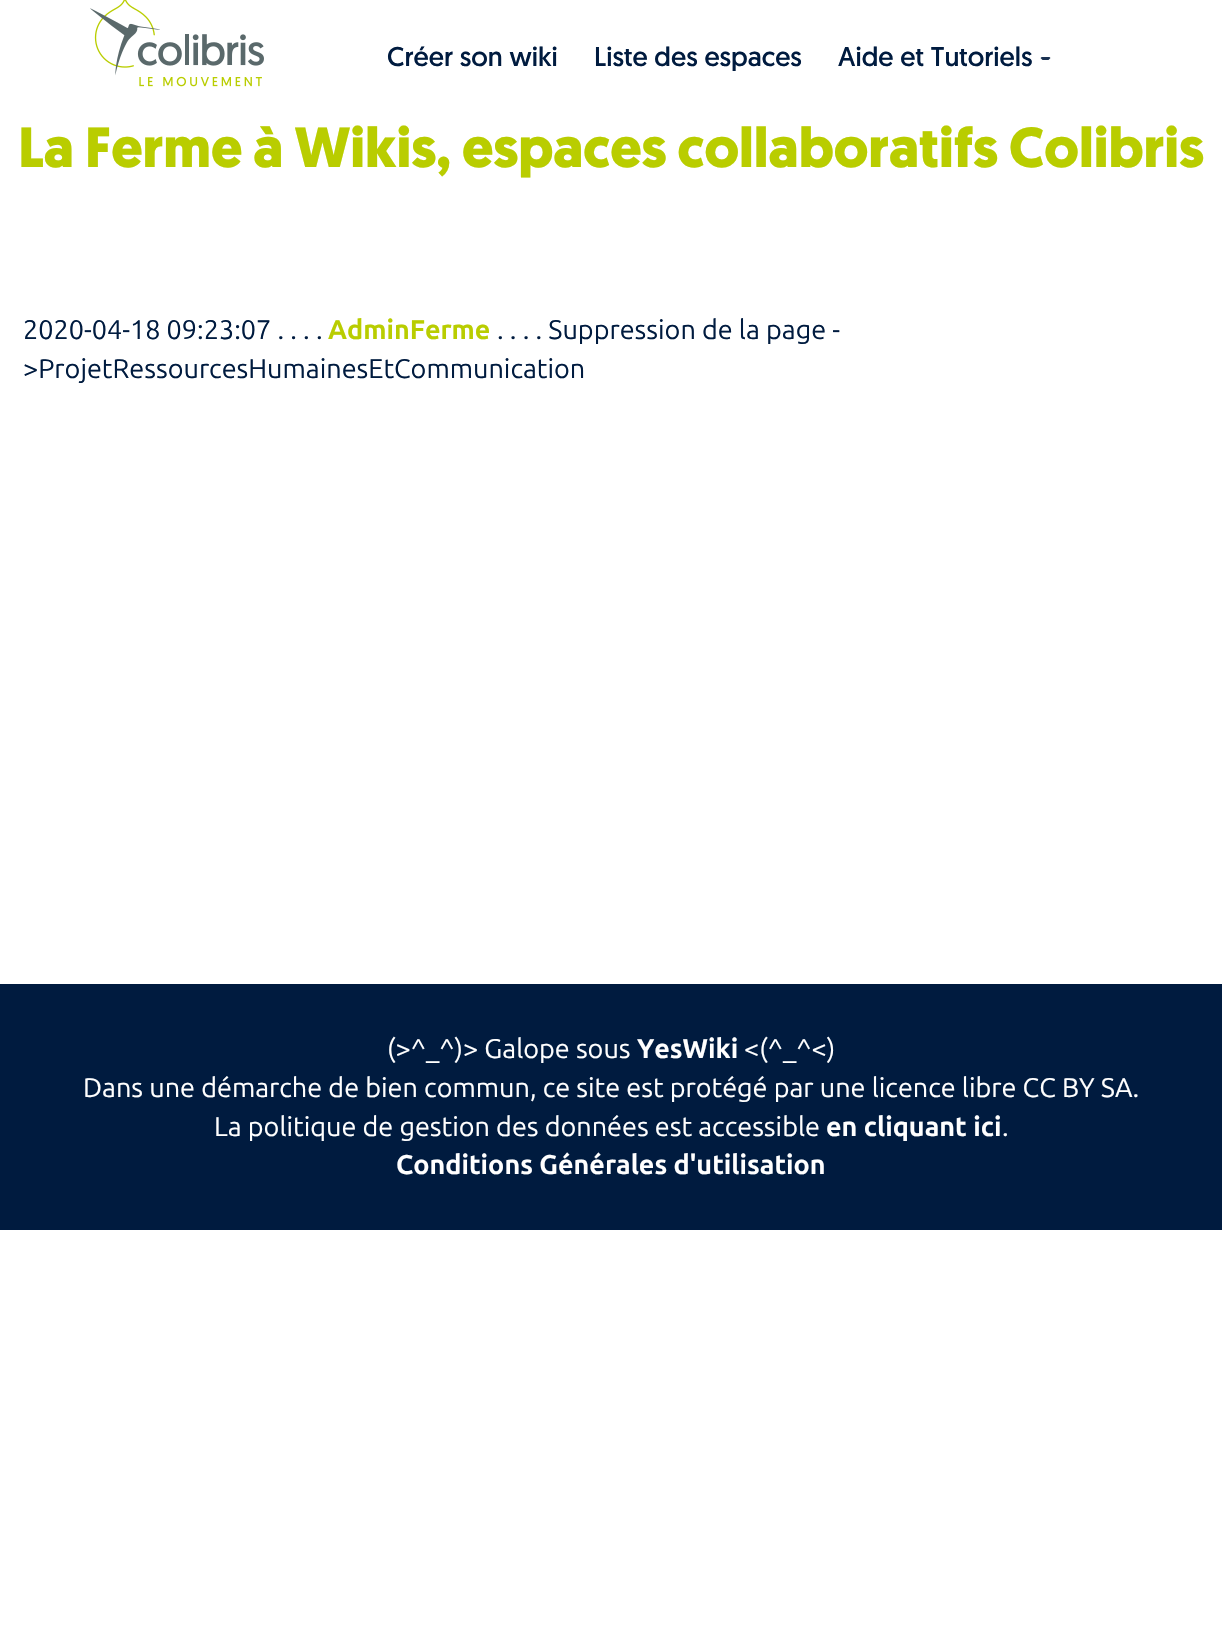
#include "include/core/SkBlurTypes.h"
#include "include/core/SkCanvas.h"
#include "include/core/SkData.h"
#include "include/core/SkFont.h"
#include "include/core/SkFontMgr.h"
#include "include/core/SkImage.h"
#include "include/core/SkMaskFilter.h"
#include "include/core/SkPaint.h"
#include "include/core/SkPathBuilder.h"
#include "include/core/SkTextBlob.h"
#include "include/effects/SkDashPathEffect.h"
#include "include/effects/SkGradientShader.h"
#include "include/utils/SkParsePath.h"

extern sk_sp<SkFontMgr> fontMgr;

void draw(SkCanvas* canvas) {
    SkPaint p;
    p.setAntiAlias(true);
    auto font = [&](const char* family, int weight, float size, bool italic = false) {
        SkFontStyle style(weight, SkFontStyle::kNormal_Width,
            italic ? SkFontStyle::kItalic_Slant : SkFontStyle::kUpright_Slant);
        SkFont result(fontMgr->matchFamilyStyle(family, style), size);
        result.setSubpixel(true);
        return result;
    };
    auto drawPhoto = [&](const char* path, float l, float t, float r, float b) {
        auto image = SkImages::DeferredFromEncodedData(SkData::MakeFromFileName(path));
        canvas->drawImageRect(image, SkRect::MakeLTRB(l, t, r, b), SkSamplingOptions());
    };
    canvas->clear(0xFFFFFFFF);
    drawPhoto("media/1.png", 90, 0, 264, 87);
    auto font1 = font("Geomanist", 400, 27);
    p.setColor(0xFF001B3F);
    {
        const struct { const char* s; float x, y; } items[] = {
            {"Créer son wiki", 387, 66},
            {"Liste des espaces", 594, 66},
            {"Aide et Tutoriels", 838, 66},
        };
        for (auto [s, x, y] : items) {
            canvas->drawString(s, x, y, font1, p);
        }
    }
    p.setColor(0xFF1A3252);
    canvas->drawPath(SkPathBuilder().moveTo(1042.5f, 57).cubicTo(1041.5f, 57, 1041, 57.5f, 1040.5f, 58).lineTo(1042.5f, 60).lineTo(1048.5f, 60).lineTo(1050.5f, 58).lineTo(1049.5f, 57).close().detach(), p);
    auto font2 = font("Geomanist", 700, 56.25f);
    p.setColor(0xFFB9CD00);
    canvas->drawString("La Ferme à Wikis, espaces collaboratifs Colibris", 18, 167, font2, p);
    auto font3 = font("Ubuntu", 400, 27);
    p.setColor(0xFF001B3F);
    canvas->drawString("2020-04-18 09:23:07 . . . .", 23, 339, font3, p);
    auto font4 = font("Ubuntu", 700, 27);
    p.setColor(0xFFB9CD00);
    canvas->drawString("AdminFerme", 328, 339, font4, p);
    p.setColor(0xFF001B3F);
    canvas->drawString(". . . . Suppression de la page -", 497, 339, font3, p);
    canvas->drawString(">ProjetRessourcesHumainesEtCommunication", 23, 378, font3, p);
    canvas->drawRect(SkRect::MakeLTRB(0, 984, 1222, 1230), p);
    p.setColor(0xFFFFFFFF);
    canvas->drawString("(>^_^)> Galope sous", 387, 1058, font3, p);
    canvas->drawString("YesWiki", 637, 1058, font4, p);
    {
        const struct { const char* s; float x, y; } items[] = {
            {"<(^_^<)", 744, 1058},
            {"Dans une démarche de bien commun, ce site est protégé par une licence libre CC BY SA.", 83, 1097},
            {"La politique de gestion des données est accessible", 214, 1136},
        };
        for (auto [s, x, y] : items) {
            canvas->drawString(s, x, y, font3, p);
        }
    }
    canvas->drawString("en cliquant ici", 826, 1136, font4, p);
    canvas->drawString(".", 1002, 1136, font3, p);
    canvas->drawString("Conditions Générales d'utilisation", 396, 1174, font4, p);
}
